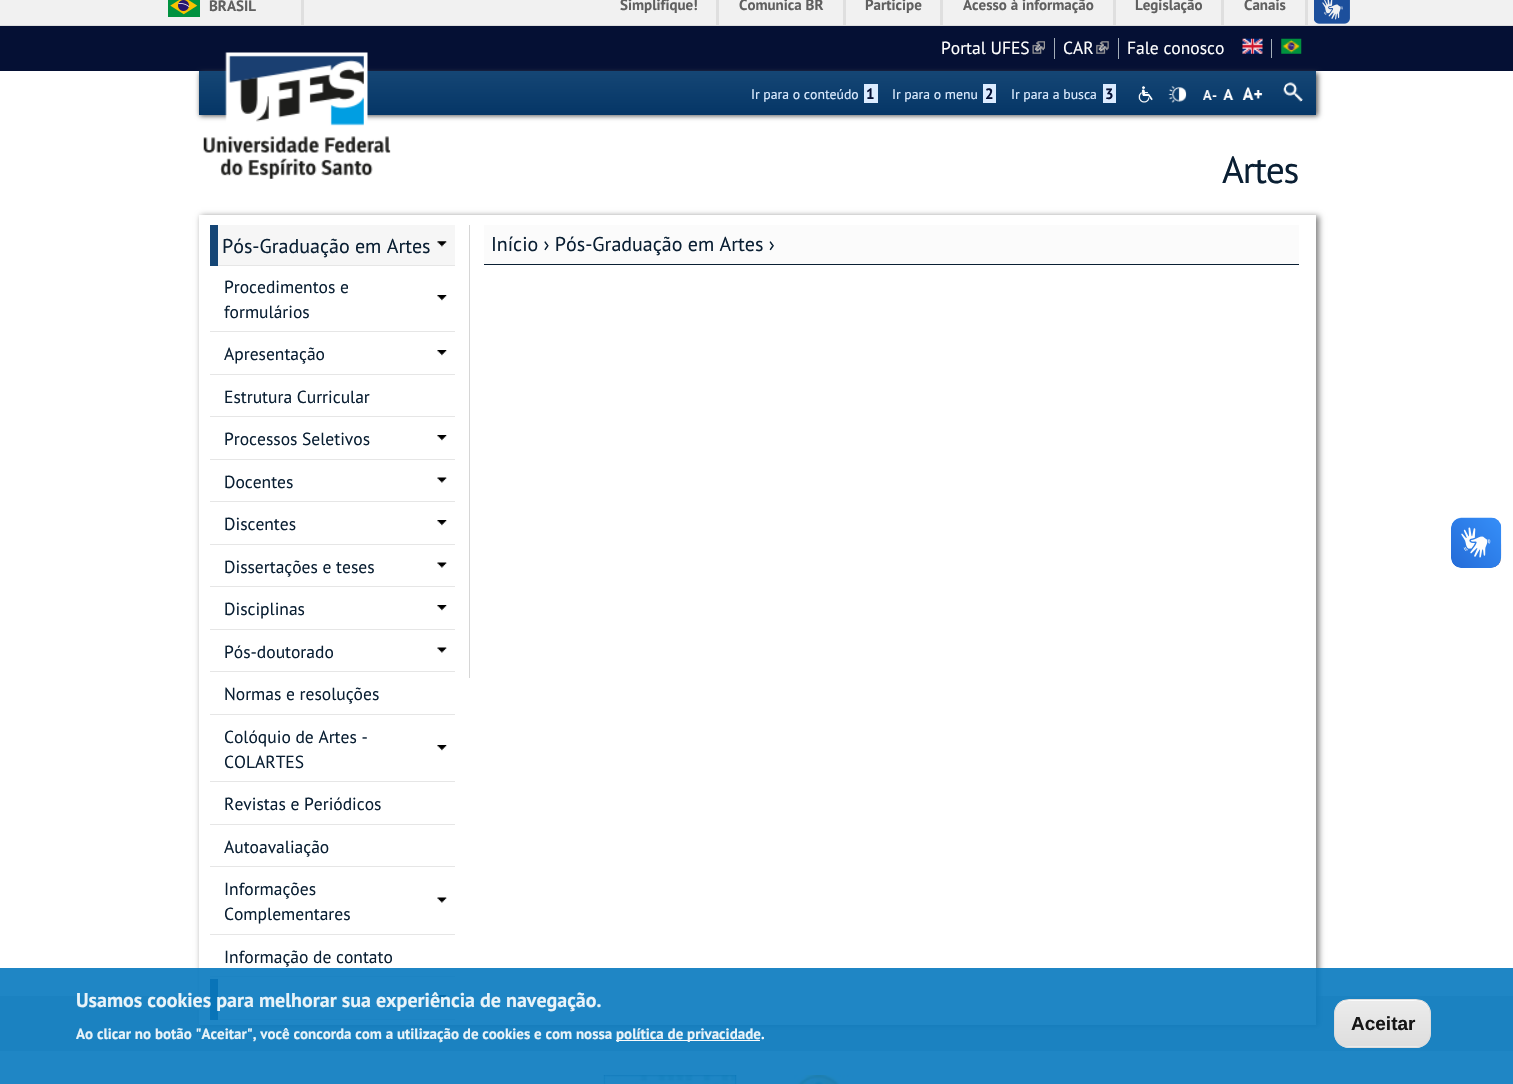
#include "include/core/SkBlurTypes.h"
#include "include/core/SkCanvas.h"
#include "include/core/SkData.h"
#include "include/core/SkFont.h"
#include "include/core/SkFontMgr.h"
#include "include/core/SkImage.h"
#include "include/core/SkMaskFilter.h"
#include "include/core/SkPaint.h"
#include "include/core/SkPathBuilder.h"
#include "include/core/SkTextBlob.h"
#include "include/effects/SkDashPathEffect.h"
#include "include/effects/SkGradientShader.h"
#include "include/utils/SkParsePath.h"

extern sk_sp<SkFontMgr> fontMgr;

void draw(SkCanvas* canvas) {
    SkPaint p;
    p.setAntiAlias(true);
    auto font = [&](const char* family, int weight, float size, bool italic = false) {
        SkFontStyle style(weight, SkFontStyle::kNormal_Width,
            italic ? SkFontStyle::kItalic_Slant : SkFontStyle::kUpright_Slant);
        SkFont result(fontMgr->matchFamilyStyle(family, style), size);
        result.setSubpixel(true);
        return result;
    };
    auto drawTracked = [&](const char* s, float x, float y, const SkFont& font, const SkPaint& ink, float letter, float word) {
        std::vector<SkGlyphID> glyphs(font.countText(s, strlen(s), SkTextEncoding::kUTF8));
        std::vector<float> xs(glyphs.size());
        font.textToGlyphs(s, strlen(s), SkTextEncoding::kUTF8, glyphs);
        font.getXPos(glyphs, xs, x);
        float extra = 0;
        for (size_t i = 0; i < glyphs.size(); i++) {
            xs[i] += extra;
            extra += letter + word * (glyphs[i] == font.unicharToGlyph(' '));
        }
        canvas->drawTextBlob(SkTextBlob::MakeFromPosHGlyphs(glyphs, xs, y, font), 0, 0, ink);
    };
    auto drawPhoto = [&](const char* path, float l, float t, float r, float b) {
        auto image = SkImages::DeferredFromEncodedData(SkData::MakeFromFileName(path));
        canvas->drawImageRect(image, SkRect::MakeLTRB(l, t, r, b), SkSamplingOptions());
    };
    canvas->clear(0xFFFFFFFF);
    {
        const struct { float l, t, r, b; SkColor color; } items[] = {
            {0, 0, 1513, 25, 0xFFF1F1F1},
            {0, 25, 1513, 26, 0xFFDFDFDF},
            {301, 0, 304, 25, 0xFFDFDFDF},
        };
        for (auto [l, t, r, b, color] : items) {
            p.setColor(color);
            canvas->drawRect(SkRect::MakeLTRB(l, t, r, b), p);
        }
    }
    drawPhoto("media/1.png", 168, 0, 200, 17);
    auto font1 = font("PT Sans", 700, 15);
    p.setColor(0xFF606060);
    canvas->drawString("BRASIL", 209, 11, font1, p);
    p.setColor(0xFFDFDFDF);
    canvas->drawRect(SkRect::MakeLTRB(716, 0, 719, 25), p);
    p.setColor(0xFF606060);
    canvas->drawString("Simplifique!", 620, 10, font1, p);
    p.setColor(0xFFDFDFDF);
    canvas->drawRect(SkRect::MakeLTRB(843, 0, 846, 25), p);
    p.setColor(0xFF606060);
    canvas->drawString("Comunica BR", 739, 10, font1, p);
    p.setColor(0xFFDFDFDF);
    canvas->drawRect(SkRect::MakeLTRB(940, 0, 943, 25), p);
    p.setColor(0xFF606060);
    canvas->drawString("Participe", 865, 10, font1, p);
    p.setColor(0xFFDFDFDF);
    canvas->drawRect(SkRect::MakeLTRB(1113, 0, 1116, 25), p);
    p.setColor(0xFF606060);
    canvas->drawString("Acesso à informação", 963, 10, font1, p);
    p.setColor(0xFFDFDFDF);
    canvas->drawRect(SkRect::MakeLTRB(1221, 0, 1224, 25), p);
    p.setColor(0xFF606060);
    canvas->drawString("Legislação", 1135, 10, font1, p);
    p.setColor(0xFFDFDFDF);
    canvas->drawRect(SkRect::MakeLTRB(1305, 0, 1308, 25), p);
    p.setColor(0xFF606060);
    canvas->drawString("Canais", 1244, 10, font1, p);
    drawPhoto("media/2.png", 1314, 0, 1350, 24);
    p.setColor(0xFF051034);
    canvas->drawRect(SkRect::MakeLTRB(0, 26, 1513, 71), p);
    p.setColor(0xFFA4AEB9);
    canvas->drawRect(SkRect::MakeLTRB(1054, 38, 1055, 59), p);
    auto font2 = font("PT Sans", 400, 17.5f);
    p.setColor(0xFFFFFFFF);
    canvas->drawString("Portal UFES", 941, 54, font2, p);
    drawPhoto("media/3.png", 1032, 41, 1045, 54);
    p.setColor(0xFFA4AEB9);
    canvas->drawRect(SkRect::MakeLTRB(1118, 38, 1119, 59), p);
    p.setColor(0xFFFFFFFF);
    canvas->drawString("CAR", 1063, 54, font2, p);
    drawPhoto("media/4.png", 1096, 41, 1109, 54);
    canvas->drawString("Fale conosco", 1127, 54, font2, p);
    p.setColor(0xFFA4AEB9);
    canvas->drawRect(SkRect::MakeLTRB(1271, 39, 1272, 58), p);
    drawPhoto("media/5.png", 1242, 38, 1263, 54);
    drawPhoto("media/6.png", 1281, 38, 1302, 54);
    p.setColor(0xFF595959);
    p.setMaskFilter(SkMaskFilter::MakeBlur(kNormal_SkBlurStyle, 2.5f));
    canvas->drawRect(SkRect::MakeLTRB(200, 73, 1318, 116), p);
    p.setMaskFilter(nullptr);
    {
        const SkColor colors[] = {0xFF154675, 0xFF053666};
        const float stops[] = {0, 1};
        const SkPoint ends[] = {{758, 71}, {758, 115}};
        p.setShader(SkGradientShader::MakeLinear(ends, colors, stops, 2, SkTileMode::kClamp));
        p.setAlpha(255);
    }
    canvas->drawRect(SkRect::MakeLTRB(199, 71, 1316, 115), p);
    drawPhoto("media/7.png", 203, 52, 391, 179);
    auto font3 = font("PT Sans", 400, 13.75f);
    p.setShader(nullptr);
    p.setColor(0xFFDCECFF);
    canvas->drawString("Ir para o conteúdo", 751, 99, font3, p);
    canvas->drawRect(SkRect::MakeLTRB(864, 84, 878, 103), p);
    p.setColor(0xFF051034);
    canvas->drawString("1", 866, 99, font1, p);
    p.setColor(0xFFDCECFF);
    canvas->drawString("Ir para o menu", 892, 99, font3, p);
    canvas->drawRect(SkRect::MakeLTRB(983, 84, 996, 103), p);
    p.setColor(0xFF051034);
    canvas->drawString("2", 985, 99, font1, p);
    p.setColor(0xFFDCECFF);
    canvas->drawString("Ir para a busca", 1011, 99, font3, p);
    canvas->drawRect(SkRect::MakeLTRB(1103, 84, 1116, 103), p);
    p.setColor(0xFF051034);
    canvas->drawString("3", 1105, 99, font1, p);
    drawPhoto("media/8.png", 1138, 86, 1153, 103);
    drawPhoto("media/9.png", 1168, 86, 1187, 103);
    drawPhoto("media/10.png", 1203, 90, 1217, 100);
    drawPhoto("media/11.png", 1223, 89, 1234, 100);
    drawPhoto("media/12.png", 1242, 87, 1263, 100);
    drawPhoto("media/13.png", 1283, 82, 1303, 102);
    auto font4 = font("PT Sans", 400, 37.5f);
    p.setColor(0xFF0A1F33);
    drawTracked("Artes", 1222, 183, font4, p, -1.25f, 0);
    p.setColor(0xFFD7D7D7);
    canvas->drawRect(SkRect::MakeLTRB(0, 996, 1513, 1051), p);
    p.setColor(0xFF808080);
    p.setMaskFilter(SkMaskFilter::MakeBlur(kNormal_SkBlurStyle, 3));
    canvas->drawRect(SkRect::MakeLTRB(201, 216, 1319, 1026), p);
    p.setMaskFilter(nullptr);
    {
        const struct { float l, t, r, b; SkColor color; } items[] = {
            {199, 215, 1316, 1025, 0xFFFFFFFF},
            {210, 225, 218, 266, 0xFF154676},
            {218, 225, 455, 265, 0xFFF6F6F6},
        };
        for (auto [l, t, r, b, color] : items) {
            p.setColor(color);
            canvas->drawRect(SkRect::MakeLTRB(l, t, r, b), p);
        }
    }
    drawPhoto("media/14.png", 437, 241, 447, 247);
    p.setColor(0xFFE6E6E6);
    canvas->drawRect(SkRect::MakeLTRB(218, 265, 455, 266), p);
    auto font5 = font("PT Sans", 400, 20);
    p.setColor(0xFF0A1F33);
    canvas->drawString("Pós-Graduação em Artes", 222, 253, font5, p);
    drawPhoto("media/15.png", 437, 295, 447, 301);
    p.setColor(0xFFE6E6E6);
    canvas->drawRect(SkRect::MakeLTRB(210, 331, 455, 332), p);
    p.setColor(0xFF0A1F33);
    canvas->drawString("Procedimentos e", 224, 293, font2, p);
    canvas->drawString("formulários", 224, 318, font2, p);
    drawPhoto("media/15.png", 437, 350, 447, 356);
    p.setColor(0xFFE6E6E6);
    canvas->drawRect(SkRect::MakeLTRB(210, 374, 455, 375), p);
    p.setColor(0xFF0A1F33);
    canvas->drawString("Apresentação", 224, 360, font2, p);
    p.setColor(0xFFE6E6E6);
    canvas->drawRect(SkRect::MakeLTRB(210, 416, 455, 417), p);
    p.setColor(0xFF0A1F33);
    canvas->drawString("Estrutura Curricular", 224, 403, font2, p);
    drawPhoto("media/15.png", 437, 435, 447, 441);
    p.setColor(0xFFE6E6E6);
    canvas->drawRect(SkRect::MakeLTRB(210, 459, 455, 460), p);
    p.setColor(0xFF0A1F33);
    canvas->drawString("Processos Seletivos", 224, 445, font2, p);
    drawPhoto("media/16.png", 437, 477, 447, 483);
    p.setColor(0xFFE6E6E6);
    canvas->drawRect(SkRect::MakeLTRB(210, 501, 455, 502), p);
    p.setColor(0xFF0A1F33);
    canvas->drawString("Docentes", 224, 488, font2, p);
    drawPhoto("media/15.png", 437, 520, 447, 526);
    p.setColor(0xFFE6E6E6);
    canvas->drawRect(SkRect::MakeLTRB(210, 544, 455, 545), p);
    p.setColor(0xFF0A1F33);
    canvas->drawString("Discentes", 224, 530, font2, p);
    drawPhoto("media/16.png", 437, 562, 447, 568);
    p.setColor(0xFFE6E6E6);
    canvas->drawRect(SkRect::MakeLTRB(210, 586, 455, 587), p);
    p.setColor(0xFF0A1F33);
    canvas->drawString("Dissertações e teses", 224, 573, font2, p);
    drawPhoto("media/15.png", 437, 605, 447, 611);
    p.setColor(0xFFE6E6E6);
    canvas->drawRect(SkRect::MakeLTRB(210, 629, 455, 630), p);
    p.setColor(0xFF0A1F33);
    canvas->drawString("Disciplinas", 224, 615, font2, p);
    drawPhoto("media/16.png", 437, 647, 447, 653);
    p.setColor(0xFFE6E6E6);
    canvas->drawRect(SkRect::MakeLTRB(210, 671, 455, 672), p);
    p.setColor(0xFF0A1F33);
    canvas->drawString("Pós-doutorado", 224, 658, font2, p);
    p.setColor(0xFFE6E6E6);
    canvas->drawRect(SkRect::MakeLTRB(210, 714, 455, 715), p);
    p.setColor(0xFF0A1F33);
    canvas->drawString("Normas e resoluções", 224, 700, font2, p);
    drawPhoto("media/15.png", 437, 745, 447, 751);
    p.setColor(0xFFE6E6E6);
    canvas->drawRect(SkRect::MakeLTRB(210, 781, 455, 782), p);
    p.setColor(0xFF0A1F33);
    canvas->drawString("Colóquio de Artes -", 224, 743, font2, p);
    canvas->drawString("COLARTES", 224, 768, font2, p);
    p.setColor(0xFFE6E6E6);
    canvas->drawRect(SkRect::MakeLTRB(210, 824, 455, 825), p);
    p.setColor(0xFF0A1F33);
    canvas->drawString("Revistas e Periódicos", 224, 810, font2, p);
    p.setColor(0xFFE6E6E6);
    canvas->drawRect(SkRect::MakeLTRB(210, 866, 455, 867), p);
    p.setColor(0xFF0A1F33);
    canvas->drawString("Autoavaliação", 224, 853, font2, p);
    drawPhoto("media/16.png", 437, 897, 447, 903);
    p.setColor(0xFFE6E6E6);
    canvas->drawRect(SkRect::MakeLTRB(210, 934, 455, 935), p);
    p.setColor(0xFF0A1F33);
    canvas->drawString("Informações", 224, 895, font2, p);
    canvas->drawString("Complementares", 224, 920, font2, p);
    p.setColor(0xFFE6E6E6);
    canvas->drawRect(SkRect::MakeLTRB(210, 976, 455, 977), p);
    p.setColor(0xFF0A1F33);
    canvas->drawString("Informação de contato", 224, 963, font2, p);
    p.setColor(0xFF154676);
    canvas->drawRect(SkRect::MakeLTRB(210, 979, 218, 1020), p);
    drawPhoto("media/15.png", 437, 995, 447, 1001);
    {
        const struct { float l, t, r, b; SkColor color; } items[] = {
            {218, 1019, 455, 1020, 0xFFE6E6E6},
            {469, 225, 470, 678, 0xFFD6D6D6},
            {484, 225, 1299, 264, 0xFFFBFBFB},
            {484, 264, 1299, 265, 0xFF0A1F33},
        };
        for (auto [l, t, r, b, color] : items) {
            p.setColor(color);
            canvas->drawRect(SkRect::MakeLTRB(l, t, r, b), p);
        }
    }
    canvas->drawString("Início › Pós-Graduação em Artes ›", 491, 251, font5, p);
    drawPhoto("media/17.png", 1451, 517, 1502, 568);
    drawPhoto("media/18.png", 1451, 518, 1501, 568);
    drawPhoto("media/19.png", 603, 1075, 737, 1084);
    drawPhoto("media/20.png", 793, 1075, 855, 1084);
    p.setColor(0xE60779BF);
    canvas->drawRect(SkRect::MakeLTRB(0, 968, 1513, 1084), p);
    auto font6 = font("PT Sans", 700, 20);
    p.setColor(0xFFE8F3F9);
    canvas->drawString("Usamos cookies para melhorar sua experiência de navegação.", 76, 1007, font6, p);
    canvas->drawString("Ao clicar no botão \"Aceitar\", você concorda com a utilização de cookies e com nossa", 76, 1039, font1, p);
    p.setColor(0xFFFBFBFB);
    canvas->drawRect(SkRect::MakeLTRB(616, 1040, 760, 1041), p);
    p.setColor(0xFFE8F3F9);
    canvas->drawString("política de privacidade", 616, 1039, font1, p);
    p.setColor(0xFFFFFFFF);
    canvas->drawString(".", 761, 1039, font1, p);
    canvas->save();
    canvas->clipPath(SkPathBuilder().moveTo(1349, 999).lineTo(1416, 999).cubicTo(1424.5f, 999, 1431, 1005.5f, 1431, 1014).lineTo(1431, 1033).cubicTo(1431, 1041.5f, 1424.5f, 1048, 1416, 1048).lineTo(1349, 1048).cubicTo(1340.5f, 1048, 1334, 1041.5f, 1334, 1033).lineTo(1334, 1014).cubicTo(1334, 1005.5f, 1340.5f, 999, 1349, 999).close().detach(), true);
    {
        const SkColor colors[] = {0xFFEBEBEB, 0xFFDEDEDE};
        const float stops[] = {0.05f, 1};
        const SkPoint ends[] = {{1383, 1000}, {1383, 1046}};
        p.setShader(SkGradientShader::MakeLinear(ends, colors, stops, 2, SkTileMode::kClamp));
        p.setAlpha(255);
    }
    canvas->drawRect(SkRect::MakeLTRB(1334, 1000, 1431, 1046), p);
    {
        const SkColor colors[] = {0xFFEBEBEB, 0xFFDEDEDE};
        const float stops[] = {0.05f, 1};
        const SkPoint ends[] = {{1383, 1046}, {1383, 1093}};
        p.setShader(SkGradientShader::MakeLinear(ends, colors, stops, 2, SkTileMode::kClamp));
        p.setAlpha(255);
    }
    canvas->drawRect(SkRect::MakeLTRB(1334, 1046, 1431, 1048), p);
    canvas->restore();
    p.setShader(nullptr);
    p.setColor(0xFFFBFBFB);
    canvas->drawPath(SkPathBuilder().moveTo(1349, 1001).lineTo(1416, 1001).cubicTo(1424, 1001, 1430, 1007, 1430, 1015).cubicTo(1430, 999, 1417, 1000, 1405, 1000).lineTo(1360, 1000).cubicTo(1348, 1000, 1335, 999, 1335, 1015).cubicTo(1335, 1007, 1341, 1001, 1349, 1001).close().detach(), p);
    p.setStyle(SkPaint::kStroke_Style);
    p.setStrokeWidth(1);
    p.setColor(0xFFDCDCDC);
    canvas->drawRoundRect(SkRect::MakeLTRB(1334.5f, 999.5f, 1430.5f, 1047.5f), 14.5f, 14.5f, p);
    auto font7 = font("Liberation Sans", 700, 19);
    p.setStyle(SkPaint::kFill_Style);
    p.setColor(0xFF161616);
    canvas->drawString("Aceitar", 1351, 1030, font7, p);
}
